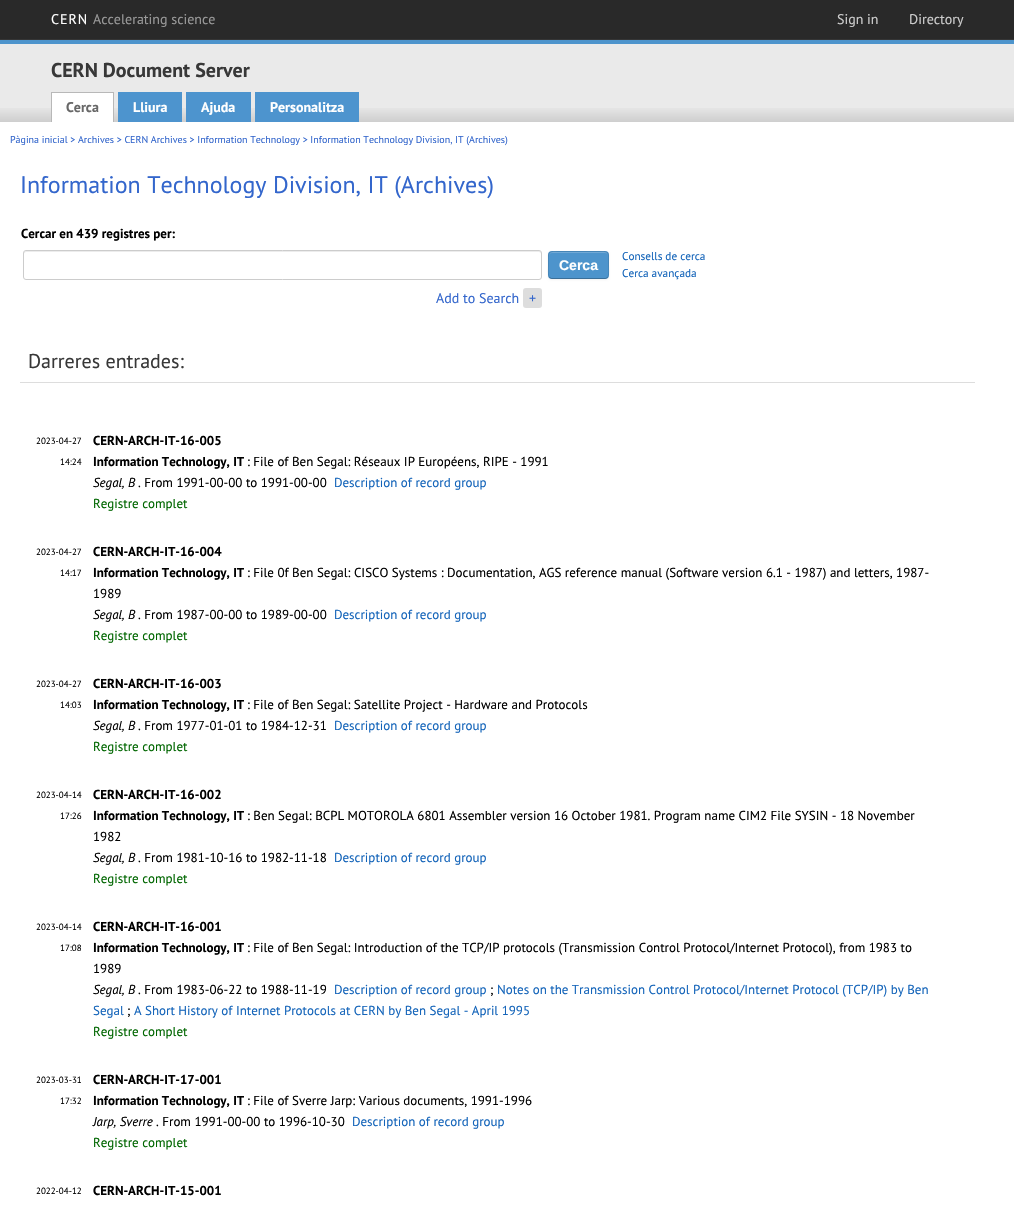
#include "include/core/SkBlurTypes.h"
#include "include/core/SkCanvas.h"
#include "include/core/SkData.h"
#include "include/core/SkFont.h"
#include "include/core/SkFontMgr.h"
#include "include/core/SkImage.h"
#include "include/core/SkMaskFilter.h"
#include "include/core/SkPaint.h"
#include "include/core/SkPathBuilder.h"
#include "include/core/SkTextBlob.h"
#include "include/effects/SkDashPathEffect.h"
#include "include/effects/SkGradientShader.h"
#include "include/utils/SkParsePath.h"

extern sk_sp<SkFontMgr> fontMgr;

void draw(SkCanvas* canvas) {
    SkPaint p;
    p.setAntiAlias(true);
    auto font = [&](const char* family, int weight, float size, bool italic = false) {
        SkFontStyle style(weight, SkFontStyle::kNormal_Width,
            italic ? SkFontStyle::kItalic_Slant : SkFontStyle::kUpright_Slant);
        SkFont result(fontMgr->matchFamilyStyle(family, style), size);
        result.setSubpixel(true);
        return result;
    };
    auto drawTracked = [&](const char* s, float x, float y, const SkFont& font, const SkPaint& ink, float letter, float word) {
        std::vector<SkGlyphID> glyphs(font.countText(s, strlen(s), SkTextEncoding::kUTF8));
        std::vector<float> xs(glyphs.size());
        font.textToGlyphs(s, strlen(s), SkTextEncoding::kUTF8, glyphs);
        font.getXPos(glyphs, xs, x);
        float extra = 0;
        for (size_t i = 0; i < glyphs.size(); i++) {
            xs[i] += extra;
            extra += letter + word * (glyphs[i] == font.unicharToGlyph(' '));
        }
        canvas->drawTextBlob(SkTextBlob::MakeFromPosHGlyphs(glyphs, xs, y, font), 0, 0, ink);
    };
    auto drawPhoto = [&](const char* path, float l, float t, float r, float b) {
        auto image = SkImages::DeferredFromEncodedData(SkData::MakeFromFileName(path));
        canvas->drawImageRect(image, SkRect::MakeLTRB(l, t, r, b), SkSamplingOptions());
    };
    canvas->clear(0xFFFFFFFF);
    p.setColor(0xFF292929);
    canvas->drawRect(SkRect::MakeLTRB(0, 0, 1014, 39), p);
    p.setColor(0xFF353535);
    canvas->drawRect(SkRect::MakeLTRB(0, 39, 1014, 40), p);
    auto font1 = font("PT Sans", 400, 14);
    p.setColor(0xFFFFFFFF);
    drawTracked("CERN", 51, 24, font1, p, 1, 0);
    p.setColor(0xFF999999);
    canvas->drawString("Accelerating science", 93, 24, font1, p);
    p.setColor(0xFFCCCCCC);
    canvas->drawString("Sign in", 837, 24, font1, p);
    canvas->drawString("Directory", 909, 24, font1, p);
    p.setColor(0xFFEAEAEA);
    canvas->drawRect(SkRect::MakeLTRB(0, 44, 1014, 122), p);
    drawPhoto("media/1.png", 0, 108, 1014, 122);
    p.setColor(0xFF4D94CC);
    canvas->drawRect(SkRect::MakeLTRB(0, 40, 1014, 44), p);
    auto font2 = font("PT Sans", 700, 20);
    p.setColor(0xFF383838);
    canvas->drawString("CERN Document Server", 51, 77, font2, p);
    {
        const struct { float l, t, r, b; SkColor color; } items[] = {
            {52, 93, 113, 122, 0xFFFFFFFF},
            {51, 92, 114, 93, 0xFFB8B8B8},
            {113, 92, 114, 122, 0xFFB8B8B8},
            {51, 92, 52, 122, 0xFFB8B8B8},
        };
        for (auto [l, t, r, b, color] : items) {
            p.setColor(color);
            canvas->drawRect(SkRect::MakeLTRB(l, t, r, b), p);
        }
    }
    auto font3 = font("PT Sans", 700, 14);
    p.setColor(0xFF686868);
    canvas->drawString("Cerca", 66, 112, font3, p);
    p.setColor(0xFF4D94CE);
    canvas->drawRect(SkRect::MakeLTRB(118, 92, 182, 122), p);
    p.setColor(0xFFFFFFFF);
    canvas->drawString("Lliura", 133, 112, font3, p);
    p.setColor(0xFF4D94CE);
    canvas->drawRect(SkRect::MakeLTRB(186, 92, 251, 122), p);
    p.setColor(0xFFFFFFFF);
    canvas->drawString("Ajuda", 201, 112, font3, p);
    p.setColor(0xFF4D94CE);
    canvas->drawRect(SkRect::MakeLTRB(255, 92, 359, 122), p);
    p.setColor(0xFFFFFFFF);
    canvas->drawString("Personalitza", 270, 112, font3, p);
    auto font4 = font("PT Sans", 400, 10);
    p.setColor(0xFF3366CC);
    canvas->drawString("Pàgina inicial > Archives > CERN Archives > Information Technology > Information Technology Division, IT (Archives)", 10, 143, font4, p);
    auto font5 = font("PT Sans", 400, 24);
    canvas->drawString("Information Technology Division, IT (Archives)", 20, 193, font5, p);
    auto font6 = font("PT Sans", 700, 13);
    p.setColor(0xFF000000);
    canvas->drawString("Cercar en 439 registres per:", 21, 238, font6, p);
    p.setColor(0xFFECECEC);
    canvas->drawPath(SkPathBuilder().moveTo(26, 252).lineTo(539, 252).cubicTo(540, 252, 541, 253, 541, 254).cubicTo(541, 253, 541, 251, 539, 251).lineTo(26, 251).lineTo(24, 252).lineTo(24, 254).cubicTo(24, 253, 25, 252, 26, 252).close().detach(), p);
    p.setStyle(SkPaint::kStroke_Style);
    p.setStrokeWidth(1);
    p.setColor(0xFFCCCCCC);
    canvas->drawRoundRect(SkRect::MakeLTRB(23.5f, 250.5f, 541.5f, 279.5f), 2.5f, 2.5f, p);
    p.setStyle(SkPaint::kFill_Style);
    p.setColor(0x0D000000);
    p.setMaskFilter(SkMaskFilter::MakeBlur(kNormal_SkBlurStyle, 1));
    canvas->drawRoundRect(SkRect::MakeLTRB(548, 252, 609, 280), 4, 4, p);
    p.setMaskFilter(nullptr);
    p.setColor(0xFF4D94CC);
    canvas->drawRoundRect(SkRect::MakeLTRB(548, 251, 609, 279), 4, 4, p);
    p.setColor(0xFF71A9D6);
    canvas->drawPath(SkPathBuilder().moveTo(552, 253).lineTo(605, 253).cubicTo(607, 253, 608, 254, 608, 256).cubicTo(608, 250, 601, 252, 596, 252).lineTo(561, 252).cubicTo(556, 252, 549, 250, 549, 256).cubicTo(549, 254, 550, 253, 552, 253).close().detach(), p);
    p.setStyle(SkPaint::kStroke_Style);
    p.setColor(0x40000000);
    canvas->drawPath(SkPathBuilder().moveTo(607.5f, 277.5f).lineTo(605.5f, 278.5f).lineTo(551.5f, 278.5f).lineTo(549.5f, 277.5f).detach(), p);
    p.setColor(0x1A000000);
    canvas->drawPath(SkPathBuilder().moveTo(549.5f, 277.5f).cubicTo(547.5f, 275, 548.5f, 267.5f, 548.5f, 265).cubicTo(548.5f, 250.5f, 546.5f, 251.5f, 561, 251.5f).lineTo(596, 251.5f).cubicTo(610.5f, 251.5f, 608.5f, 250.5f, 608.5f, 265).cubicTo(608.5f, 267.5f, 609.5f, 275, 607.5f, 277.5f).detach(), p);
    auto font7 = font("Liberation Sans", 700, 14);
    p.setStyle(SkPaint::kFill_Style);
    p.setColor(0xFFFFFFFF);
    canvas->drawString("Cerca", 559, 270, font7, p);
    auto font8 = font("PT Sans", 400, 11.25f);
    p.setColor(0xFF1565BA);
    canvas->drawString("Consells de cerca", 622, 260, font8, p);
    canvas->drawString("Cerca avançada", 622, 277, font8, p);
    p.setColor(0xFF3366CC);
    canvas->drawString("Add to Search", 436, 303, font1, p);
    p.setColor(0xFFDDDDDD);
    canvas->drawRoundRect(SkRect::MakeLTRB(523, 288, 542, 308), 3, 3, p);
    p.setColor(0xFF3366CC);
    canvas->drawString("+", 529, 303, font1, p);
    p.setColor(0xFFDDDDDD);
    canvas->drawRect(SkRect::MakeLTRB(20, 382, 975, 383), p);
    auto font9 = font("PT Sans", 400, 20);
    p.setColor(0xFF383838);
    canvas->drawString("Darreres entrades:", 28, 368, font9, p);
    auto font10 = font("PT Sans", 400, 9);
    p.setColor(0xFF000000);
    canvas->drawString("2023-04-27", 36, 444, font10, p);
    canvas->drawString("14:24", 60, 465, font10, p);
    canvas->drawString("CERN-ARCH-IT-16-005", 93, 445, font6, p);
    canvas->drawString("Information Technology, IT", 93, 466, font6, p);
    auto font11 = font("PT Sans", 400, 13);
    canvas->drawString(": File of Ben Segal: Réseaux IP Européens, RIPE - 1991", 247, 466, font11, p);
    auto font12 = font("PT Sans", 400, 13, true);
    canvas->drawString("Segal, B", 93, 487, font12, p);
    canvas->drawString(". From 1991-00-00 to 1991-00-00", 138, 487, font11, p);
    p.setColor(0xFF1565BA);
    canvas->drawString("Description of record group", 334, 487, font11, p);
    p.setColor(0xFF006600);
    canvas->drawString("Registre complet", 93, 508, font11, p);
    p.setColor(0xFF000000);
    canvas->drawString("2023-04-27", 36, 555, font10, p);
    canvas->drawString("14:17", 60, 576, font10, p);
    canvas->drawString("CERN-ARCH-IT-16-004", 93, 556, font6, p);
    canvas->drawString("Information Technology, IT", 93, 577, font6, p);
    canvas->drawString(": File 0f Ben Segal: CISCO Systems : Documentation, AGS reference manual (Software version 6.1 - 1987) and letters, 1987-", 247, 577, font11, p);
    canvas->drawString("1989", 93, 598, font11, p);
    canvas->drawString("Segal, B", 93, 619, font12, p);
    canvas->drawString(". From 1987-00-00 to 1989-00-00", 138, 619, font11, p);
    p.setColor(0xFF1565BA);
    canvas->drawString("Description of record group", 334, 619, font11, p);
    p.setColor(0xFF006600);
    canvas->drawString("Registre complet", 93, 640, font11, p);
    p.setColor(0xFF000000);
    canvas->drawString("2023-04-27", 36, 687, font10, p);
    canvas->drawString("14:03", 60, 708, font10, p);
    canvas->drawString("CERN-ARCH-IT-16-003", 93, 688, font6, p);
    canvas->drawString("Information Technology, IT", 93, 709, font6, p);
    canvas->drawString(": File of Ben Segal: Satellite Project - Hardware and Protocols", 247, 709, font11, p);
    canvas->drawString("Segal, B", 93, 730, font12, p);
    canvas->drawString(". From 1977-01-01 to 1984-12-31", 138, 730, font11, p);
    p.setColor(0xFF1565BA);
    canvas->drawString("Description of record group", 334, 730, font11, p);
    p.setColor(0xFF006600);
    canvas->drawString("Registre complet", 93, 751, font11, p);
    p.setColor(0xFF000000);
    canvas->drawString("2023-04-14", 36, 798, font10, p);
    canvas->drawString("17:26", 60, 819, font10, p);
    canvas->drawString("CERN-ARCH-IT-16-002", 93, 799, font6, p);
    canvas->drawString("Information Technology, IT", 93, 820, font6, p);
    canvas->drawString(": Ben Segal: BCPL MOTOROLA 6801 Assembler version 16 October 1981. Program name CIM2 File SYSIN - 18 November", 247, 820, font11, p);
    canvas->drawString("1982", 93, 841, font11, p);
    canvas->drawString("Segal, B", 93, 862, font12, p);
    canvas->drawString(". From 1981-10-16 to 1982-11-18", 138, 862, font11, p);
    p.setColor(0xFF1565BA);
    canvas->drawString("Description of record group", 334, 862, font11, p);
    p.setColor(0xFF006600);
    canvas->drawString("Registre complet", 93, 883, font11, p);
    p.setColor(0xFF000000);
    canvas->drawString("2023-04-14", 36, 930, font10, p);
    canvas->drawString("17:08", 60, 951, font10, p);
    canvas->drawString("CERN-ARCH-IT-16-001", 93, 931, font6, p);
    canvas->drawString("Information Technology, IT", 93, 952, font6, p);
    canvas->drawString(": File of Ben Segal: Introduction of the TCP/IP protocols (Transmission Control Protocol/Internet Protocol), from 1983 to", 247, 952, font11, p);
    canvas->drawString("1989", 93, 973, font11, p);
    canvas->drawString("Segal, B", 93, 994, font12, p);
    canvas->drawString(". From 1983-06-22 to 1988-11-19", 138, 994, font11, p);
    p.setColor(0xFF1565BA);
    canvas->drawString("Description of record group", 334, 994, font11, p);
    p.setColor(0xFF000000);
    canvas->drawString(";", 490, 994, font11, p);
    p.setColor(0xFF1565BA);
    canvas->drawString("Notes on the Transmission Control Protocol/Internet Protocol (TCP/IP) by Ben", 497, 994, font11, p);
    canvas->drawString("Segal", 93, 1015, font11, p);
    p.setColor(0xFF000000);
    canvas->drawString(";", 127, 1015, font11, p);
    p.setColor(0xFF1565BA);
    canvas->drawString("A Short History of Internet Protocols at CERN by Ben Segal - April 1995", 134, 1015, font11, p);
    p.setColor(0xFF006600);
    canvas->drawString("Registre complet", 93, 1036, font11, p);
    p.setColor(0xFF000000);
    canvas->drawString("2023-03-31", 36, 1083, font10, p);
    canvas->drawString("17:32", 60, 1104, font10, p);
    canvas->drawString("CERN-ARCH-IT-17-001", 93, 1084, font6, p);
    canvas->drawString("Information Technology, IT", 93, 1105, font6, p);
    canvas->drawString(": File of Sverre Jarp: Various documents, 1991-1996", 247, 1105, font11, p);
    canvas->drawString("Jarp, Sverre", 93, 1126, font12, p);
    canvas->drawString(". From 1991-00-00 to 1996-10-30", 156, 1126, font11, p);
    p.setColor(0xFF1565BA);
    canvas->drawString("Description of record group", 352, 1126, font11, p);
    p.setColor(0xFF006600);
    canvas->drawString("Registre complet", 93, 1147, font11, p);
    p.setColor(0xFF000000);
    canvas->drawString("2022-04-12", 36, 1194, font10, p);
    canvas->drawString("CERN-ARCH-IT-15-001", 93, 1195, font6, p);
}
